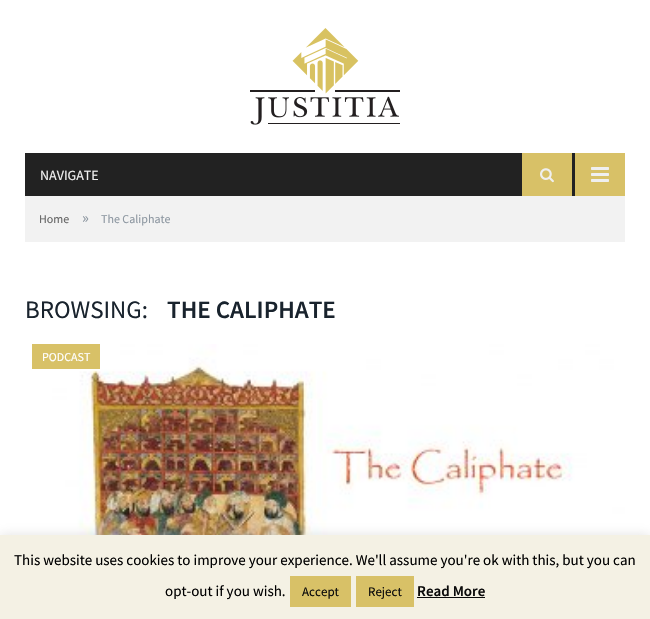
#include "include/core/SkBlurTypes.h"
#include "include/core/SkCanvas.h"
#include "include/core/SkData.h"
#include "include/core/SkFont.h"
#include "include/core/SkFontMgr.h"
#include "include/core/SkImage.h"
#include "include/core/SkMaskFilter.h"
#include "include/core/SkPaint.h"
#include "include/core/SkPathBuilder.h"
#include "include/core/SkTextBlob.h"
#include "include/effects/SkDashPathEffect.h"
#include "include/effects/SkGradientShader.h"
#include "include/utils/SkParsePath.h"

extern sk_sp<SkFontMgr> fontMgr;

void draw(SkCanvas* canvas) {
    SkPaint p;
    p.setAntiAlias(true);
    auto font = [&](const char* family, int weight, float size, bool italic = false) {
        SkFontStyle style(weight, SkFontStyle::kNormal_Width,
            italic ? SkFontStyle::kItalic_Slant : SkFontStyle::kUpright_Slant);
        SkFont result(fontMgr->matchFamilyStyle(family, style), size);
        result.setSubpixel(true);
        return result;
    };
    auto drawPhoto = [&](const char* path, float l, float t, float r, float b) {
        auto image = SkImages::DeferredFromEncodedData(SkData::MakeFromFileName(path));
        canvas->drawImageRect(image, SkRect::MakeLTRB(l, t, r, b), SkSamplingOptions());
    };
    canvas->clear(0xFFFFFFFF);
    drawPhoto("media/1.png", 250, 28, 400, 125);
    p.setColor(0xFF222222);
    canvas->drawRect(SkRect::MakeLTRB(25, 153, 575, 196), p);
    auto font1 = font("Source Sans Pro", 400, 14);
    p.setColor(0xFFEFEFEF);
    canvas->drawString("NAVIGATE", 40, 180, font1, p);
    p.setColor(0xFFD8C167);
    canvas->drawRect(SkRect::MakeLTRB(522, 153, 572, 196), p);
    drawPhoto("media/2.png", 540, 168, 554, 183);
    canvas->drawRect(SkRect::MakeLTRB(575, 153, 625, 196), p);
    drawPhoto("media/3.png", 591, 167, 609, 182);
    p.setColor(0xFFF2F2F2);
    canvas->drawRect(SkRect::MakeLTRB(25, 196, 625, 242), p);
    auto font2 = font("Source Sans Pro", 400, 12);
    p.setColor(0xFF656565);
    canvas->drawString("Home", 39, 223, font2, p);
    auto font3 = font("Source Sans Pro", 400, 16);
    p.setColor(0xFF8D97A1);
    canvas->drawString("»", 82, 223, font3, p);
    canvas->drawString("The Caliphate", 101, 223, font2, p);
    auto font4 = font("Source Sans Pro", 400, 25);
    p.setColor(0xFF19232D);
    canvas->drawString("BROWSING:", 25, 318, font4, p);
    auto font5 = font("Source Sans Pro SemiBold", 600, 25);
    canvas->drawString("THE CALIPHATE", 167, 318, font5, p);
    drawPhoto("media/4.png", 25, 344, 625, 535);
    p.setColor(0xFFD8C167);
    canvas->drawRect(SkRect::MakeLTRB(32, 344, 100, 369), p);
    p.setColor(0xFFFFFFFF);
    canvas->drawString("PODCAST", 42, 361, font2, p);
    p.setColor(0x4DACABAB);
    p.setMaskFilter(SkMaskFilter::MakeBlur(kNormal_SkBlurStyle, 5));
    canvas->drawRect(SkRect::MakeLTRB(0, 534, 650, 618), p);
    p.setMaskFilter(nullptr);
    p.setColor(0xFFF4F1E4);
    canvas->drawRect(SkRect::MakeLTRB(0, 535, 650, 619), p);
    auto font6 = font("Source Sans Pro", 400, 15);
    p.setColor(0xFF000000);
    canvas->drawString("This website uses cookies to improve your experience. We'll assume you're ok with this, but you can", 14, 565, font6, p);
    canvas->drawString("opt-out if you wish.", 165, 596, font6, p);
    p.setColor(0xFFD8C167);
    canvas->drawRect(SkRect::MakeLTRB(290, 576, 351, 607), p);
    auto font7 = font("Source Sans Pro", 400, 13);
    p.setColor(0xFF0A0A0A);
    canvas->drawString("Accept", 302, 596, font7, p);
    p.setColor(0xFFD8C167);
    canvas->drawRect(SkRect::MakeLTRB(356, 576, 414, 607), p);
    p.setColor(0xFF0A0A0A);
    canvas->drawString("Reject", 368, 596, font7, p);
    auto font8 = font("Source Sans Pro SemiBold", 600, 15);
    canvas->drawString("Read More", 417, 596, font8, p);
    canvas->drawRect(SkRect::MakeLTRB(417, 597, 485, 598), p);
}
